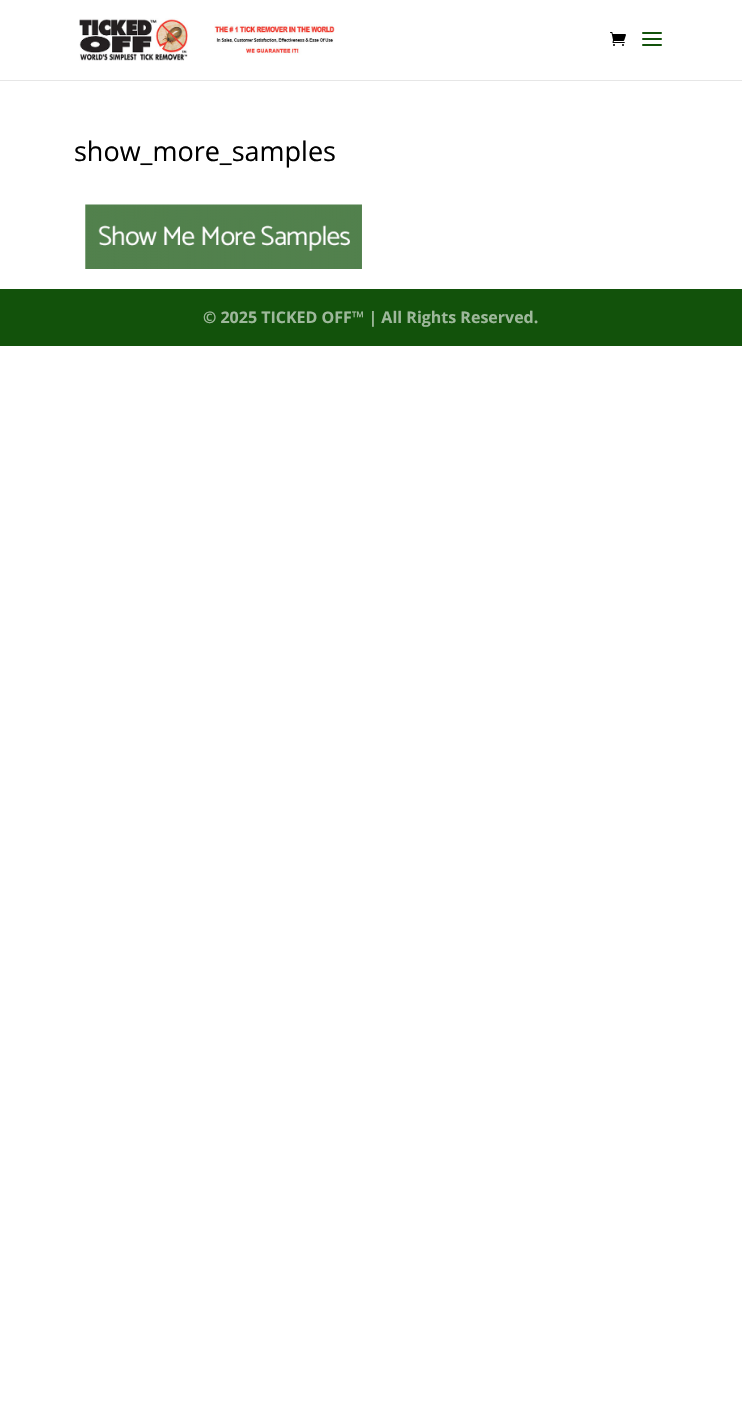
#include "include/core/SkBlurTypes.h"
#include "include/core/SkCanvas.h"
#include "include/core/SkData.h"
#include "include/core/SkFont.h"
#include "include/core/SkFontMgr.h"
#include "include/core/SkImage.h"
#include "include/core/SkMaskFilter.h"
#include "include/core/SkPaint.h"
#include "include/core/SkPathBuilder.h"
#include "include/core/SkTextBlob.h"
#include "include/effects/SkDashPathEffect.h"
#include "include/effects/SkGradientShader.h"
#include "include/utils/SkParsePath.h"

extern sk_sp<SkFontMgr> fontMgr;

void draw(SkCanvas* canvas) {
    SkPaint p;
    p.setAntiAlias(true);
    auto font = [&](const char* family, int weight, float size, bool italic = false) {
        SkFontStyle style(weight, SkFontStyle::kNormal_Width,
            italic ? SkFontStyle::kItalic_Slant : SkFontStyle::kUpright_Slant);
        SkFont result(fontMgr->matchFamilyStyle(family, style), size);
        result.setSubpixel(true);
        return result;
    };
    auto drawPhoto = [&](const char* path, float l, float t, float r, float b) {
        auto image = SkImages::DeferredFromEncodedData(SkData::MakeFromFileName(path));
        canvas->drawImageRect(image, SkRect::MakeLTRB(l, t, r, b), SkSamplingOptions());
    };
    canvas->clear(0xFFFFFFFF);
    p.setColor(0xFFE6E6E6);
    canvas->drawRect(SkRect::MakeLTRB(0, 80, 742, 81), p);
    drawPhoto("media/1.png", 79, 18, 335, 61);
    drawPhoto("media/2.png", 610, 32, 626, 46);
    drawPhoto("media/3.png", 642, 32, 662, 46);
    auto font1 = font("Open Sans", 400, 27);
    p.setColor(0xFF000000);
    canvas->drawString("show_more_samples", 74, 161, font1, p);
    drawPhoto("media/4.png", 85, 204, 362, 269);
    p.setColor(0xFF12520B);
    canvas->drawRect(SkRect::MakeLTRB(0, 289, 742, 346), p);
    auto font2 = font("Open Sans", 700, 16);
    p.setColor(0xFF9EB89B);
    canvas->drawString("© 2025 TICKED OFF™ | All Rights Reserved.", 203, 323, font2, p);
}
